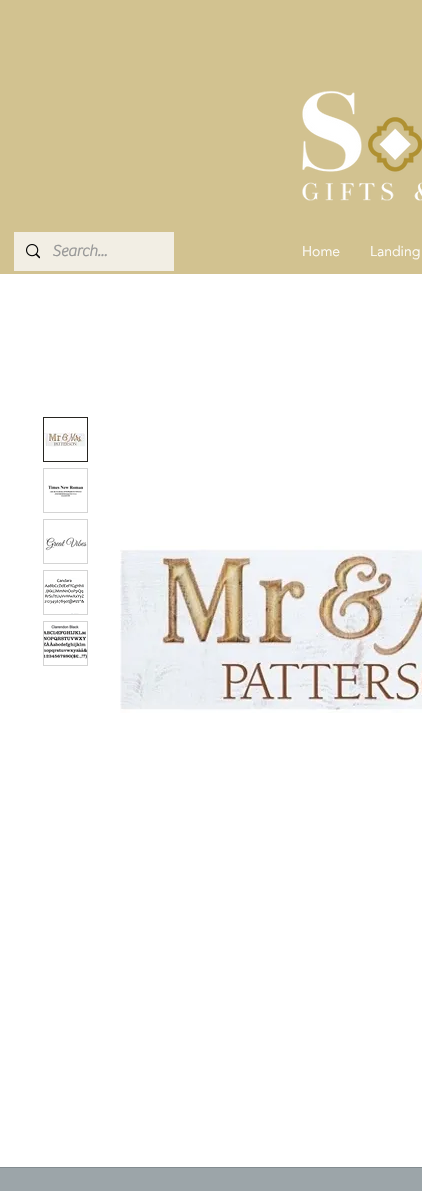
#include "include/core/SkBlurTypes.h"
#include "include/core/SkCanvas.h"
#include "include/core/SkData.h"
#include "include/core/SkFont.h"
#include "include/core/SkFontMgr.h"
#include "include/core/SkImage.h"
#include "include/core/SkMaskFilter.h"
#include "include/core/SkPaint.h"
#include "include/core/SkPathBuilder.h"
#include "include/core/SkTextBlob.h"
#include "include/effects/SkDashPathEffect.h"
#include "include/effects/SkGradientShader.h"
#include "include/utils/SkParsePath.h"

extern sk_sp<SkFontMgr> fontMgr;

void draw(SkCanvas* canvas) {
    SkPaint p;
    p.setAntiAlias(true);
    auto font = [&](const char* family, int weight, float size, bool italic = false) {
        SkFontStyle style(weight, SkFontStyle::kNormal_Width,
            italic ? SkFontStyle::kItalic_Slant : SkFontStyle::kUpright_Slant);
        SkFont result(fontMgr->matchFamilyStyle(family, style), size);
        result.setSubpixel(true);
        return result;
    };
    auto drawPhoto = [&](const char* path, float l, float t, float r, float b) {
        auto image = SkImages::DeferredFromEncodedData(SkData::MakeFromFileName(path));
        canvas->drawImageRect(image, SkRect::MakeLTRB(l, t, r, b), SkSamplingOptions());
    };
    canvas->clear(0xFFFFFFFF);
    p.setColor(0xFF9CA5A9);
    canvas->drawRect(SkRect::MakeLTRB(0, 1168, 422, 1191), p);
    p.setColor(0xFFD2C290);
    canvas->drawRect(SkRect::MakeLTRB(0, 0, 422, 274), p);
    drawPhoto("media/1.png", 302, 90, 422, 201);
    p.setColor(0xFFF2EEE4);
    canvas->drawRect(SkRect::MakeLTRB(14, 232, 174, 271), p);
    drawPhoto("media/2.png", 26, 244, 40, 259);
    auto font1 = font("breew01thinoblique", 700, 16);
    p.setColor(0xFF999999);
    canvas->drawString("Search...", 52, 256, font1, p);
    auto font2 = font("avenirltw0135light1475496", 300, 14);
    p.setColor(0xFFFFFFFF);
    canvas->drawString("Home", 302, 256, font2, p);
    canvas->drawString("Landing", 370, 256, font2, p);
    p.setStyle(SkPaint::kStroke_Style);
    p.setStrokeWidth(1);
    p.setColor(0xFF272521);
    canvas->drawRect(SkRect::MakeLTRB(43.5f, 417.5f, 87.5f, 461.5f), p);
    drawPhoto("media/3.png", 44, 430, 86, 447);
    p.setColor(0xFFD4D4D4);
    canvas->drawRect(SkRect::MakeLTRB(43.5f, 468.5f, 87.5f, 512.5f), p);
    drawPhoto("media/4.png", 48, 485, 83, 497);
    canvas->drawRect(SkRect::MakeLTRB(43.5f, 519.5f, 87.5f, 563.5f), p);
    drawPhoto("media/5.png", 45, 537, 87, 551);
    canvas->drawRect(SkRect::MakeLTRB(43.5f, 570.5f, 87.5f, 614.5f), p);
    drawPhoto("media/6.png", 44, 578, 86, 614);
    canvas->drawRect(SkRect::MakeLTRB(43.5f, 621.5f, 87.5f, 665.5f), p);
    drawPhoto("media/7.png", 44, 625, 87, 659);
    drawPhoto("media/8.png", 120, 546, 422, 713);
    p.setStyle(SkPaint::kFill_Style);
    p.setColor(0xFF828C90);
    canvas->drawRect(SkRect::MakeLTRB(0, 1167, 422, 1168), p);
}
